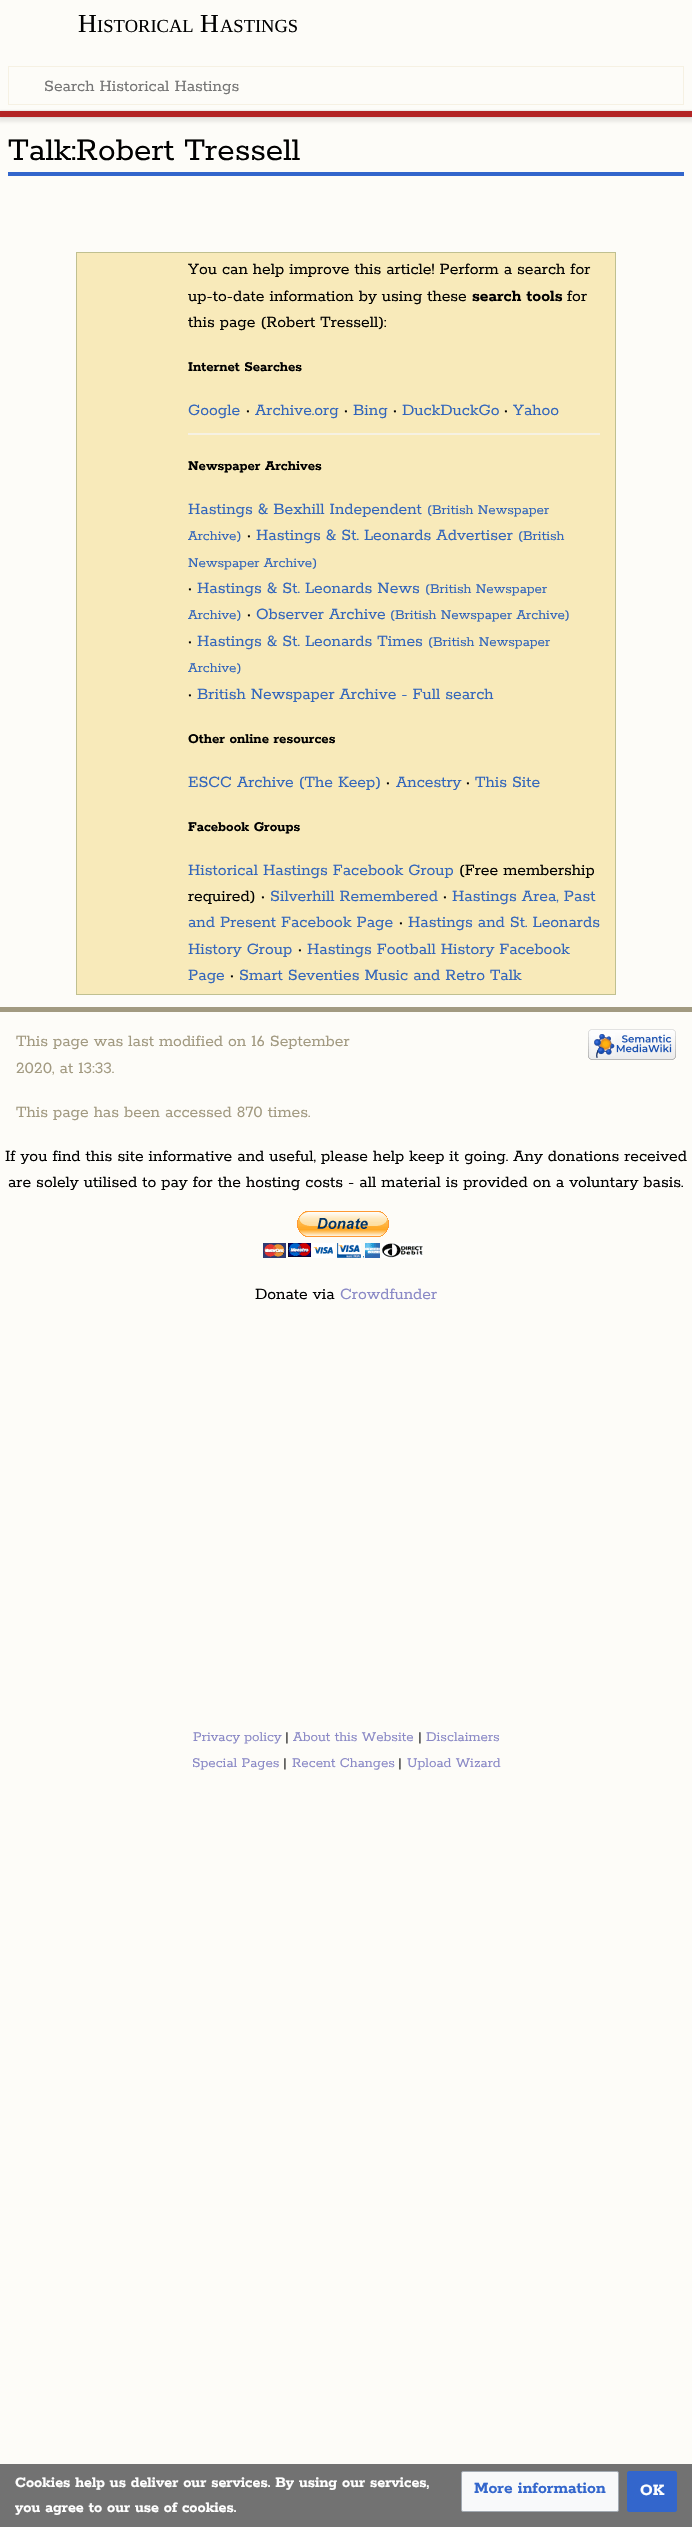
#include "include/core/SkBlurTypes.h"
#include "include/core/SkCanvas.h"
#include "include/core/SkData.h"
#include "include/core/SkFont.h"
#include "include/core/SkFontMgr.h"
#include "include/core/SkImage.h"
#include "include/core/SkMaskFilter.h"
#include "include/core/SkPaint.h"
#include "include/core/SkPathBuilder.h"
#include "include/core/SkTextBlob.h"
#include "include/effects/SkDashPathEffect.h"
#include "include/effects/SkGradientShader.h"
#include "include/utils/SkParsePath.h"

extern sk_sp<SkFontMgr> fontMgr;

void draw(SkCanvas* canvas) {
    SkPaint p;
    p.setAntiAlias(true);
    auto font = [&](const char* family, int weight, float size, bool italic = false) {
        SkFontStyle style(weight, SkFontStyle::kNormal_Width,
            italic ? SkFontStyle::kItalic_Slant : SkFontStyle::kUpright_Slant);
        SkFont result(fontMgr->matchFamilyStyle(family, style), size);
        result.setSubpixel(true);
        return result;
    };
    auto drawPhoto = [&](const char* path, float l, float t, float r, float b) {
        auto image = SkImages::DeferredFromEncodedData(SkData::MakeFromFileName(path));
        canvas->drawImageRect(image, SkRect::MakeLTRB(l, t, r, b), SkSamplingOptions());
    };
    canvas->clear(0xFFFDFCF8);
    auto font1 = font("Liberation Serif", 400, 26);
    p.setColor(0xFF000000);
    canvas->drawString("H", 78, 32, font1, p);
    auto font2 = font("Liberation Serif", 400, 18.5f);
    canvas->drawString("ISTORICAL", 97, 32, font2, p);
    canvas->drawString("H", 200, 32, font1, p);
    canvas->drawString("ASTINGS", 220, 32, font2, p);
    p.setStyle(SkPaint::kStroke_Style);
    p.setStrokeWidth(1);
    p.setColor(0xFFF6F1E3);
    canvas->drawRect(SkRect::MakeLTRB(8.5f, 66.5f, 683.5f, 104.5f), p);
    auto font3 = font("Rokkitt", 400, 17.6f);
    p.setStyle(SkPaint::kFill_Style);
    p.setColor(0xFF757575);
    canvas->drawString("Search Historical Hastings", 44, 91, font3, p);
    p.setColor(0x33000000);
    p.setMaskFilter(SkMaskFilter::MakeBlur(kNormal_SkBlurStyle, 1));
    canvas->drawRect(SkRect::MakeLTRB(0, 111, 692, 117), p);
    p.setMaskFilter(nullptr);
    p.setColor(0x12000000);
    p.setMaskFilter(SkMaskFilter::MakeBlur(kNormal_SkBlurStyle, 1.5f));
    canvas->drawRect(SkRect::MakeLTRB(-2, 112, 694, 122), p);
    p.setMaskFilter(nullptr);
    {
        const struct { float l, t, r, b; SkColor color; } items[] = {
            {0, 111, 692, 117, 0xFFB32424},
            {0, 1007, 692, 1012, 0xFFA29A81},
            {8, 172, 684, 176, 0xFF3366CC},
        };
        for (auto [l, t, r, b, color] : items) {
            p.setColor(color);
            canvas->drawRect(SkRect::MakeLTRB(l, t, r, b), p);
        }
    }
    auto font4 = font("Rokkitt", 400, 35.25f);
    p.setColor(0xFF000000);
    canvas->drawString("Talk:Robert Tressell", 8, 160, font4, p);
    {
        const struct { float l, t, r, b; SkColor color; } items[] = {
            {77, 253, 615, 994, 0xFFF8EABA},
            {76, 252, 616, 253, 0xFFC0C090},
            {615, 252, 616, 995, 0xFFC0C090},
            {76, 994, 616, 995, 0xFFC0C090},
            {76, 252, 77, 995, 0xFFC0C090},
        };
        for (auto [l, t, r, b, color] : items) {
            p.setColor(color);
            canvas->drawRect(SkRect::MakeLTRB(l, t, r, b), p);
        }
    }
    p.setColor(0xFF000000);
    canvas->drawString("You can help improve this article! Perform a search for", 188, 274, font3, p);
    canvas->drawString("up-to-date information by using these", 188, 301, font3, p);
    auto font5 = font("Rokkitt", 700, 17.6f);
    canvas->drawString("search tools", 472, 301, font5, p);
    canvas->drawString("for", 567, 301, font3, p);
    canvas->drawString("this page (Robert Tressell):", 188, 327, font3, p);
    auto font6 = font("Rokkitt", 700, 15);
    canvas->drawString("Internet Searches", 188, 371, font6, p);
    p.setColor(0xFF3366BB);
    canvas->drawString("Google", 188, 415, font3, p);
    p.setColor(0xFF000000);
    canvas->drawString("·", 246, 415, font5, p);
    p.setColor(0xFF3366BB);
    canvas->drawString("Archive.org", 255, 415, font3, p);
    p.setColor(0xFF000000);
    canvas->drawString("·", 344, 415, font5, p);
    p.setColor(0xFF3366BB);
    canvas->drawString("Bing", 353, 415, font3, p);
    p.setColor(0xFF000000);
    canvas->drawString("·", 393, 415, font5, p);
    p.setColor(0xFF3366BB);
    canvas->drawString("DuckDuckGo", 402, 415, font3, p);
    p.setColor(0xFF000000);
    canvas->drawString("·", 504, 415, font5, p);
    p.setColor(0xFF3366BB);
    canvas->drawString("Yahoo", 513, 415, font3, p);
    p.setColor(0xFFF6F1E3);
    canvas->drawRect(SkRect::MakeLTRB(188, 433, 600, 435), p);
    p.setColor(0xFF000000);
    canvas->drawString("Newspaper Archives", 188, 470, font6, p);
    p.setColor(0xFF3366BB);
    canvas->drawString("Hastings & Bexhill Independent", 188, 514, font3, p);
    auto font7 = font("Rokkitt", 400, 15);
    canvas->drawString("(British Newspaper", 427, 514, font7, p);
    canvas->drawString("Archive)", 188, 540, font7, p);
    p.setColor(0xFF000000);
    canvas->drawString("·", 247, 540, font5, p);
    p.setColor(0xFF3366BB);
    canvas->drawString("Hastings & St. Leonards Advertiser", 256, 540, font3, p);
    canvas->drawString("(British", 518, 540, font7, p);
    canvas->drawString("Newspaper Archive)", 188, 567, font7, p);
    p.setColor(0xFF000000);
    canvas->drawString("·", 188, 593, font5, p);
    p.setColor(0xFF3366BB);
    canvas->drawString("Hastings & St. Leonards News", 197, 593, font3, p);
    canvas->drawString("(British Newspaper", 425, 593, font7, p);
    canvas->drawString("Archive)", 188, 619, font7, p);
    p.setColor(0xFF000000);
    canvas->drawString("·", 247, 619, font5, p);
    p.setColor(0xFF3366BB);
    canvas->drawString("Observer Archive", 256, 619, font3, p);
    canvas->drawString("(British Newspaper Archive)", 390, 619, font7, p);
    p.setColor(0xFF000000);
    canvas->drawString("·", 188, 646, font5, p);
    p.setColor(0xFF3366BB);
    canvas->drawString("Hastings & St. Leonards Times", 197, 646, font3, p);
    canvas->drawString("(British Newspaper", 428, 646, font7, p);
    canvas->drawString("Archive)", 188, 672, font7, p);
    p.setColor(0xFF000000);
    canvas->drawString("·", 188, 699, font5, p);
    p.setColor(0xFF3366BB);
    canvas->drawString("British Newspaper Archive - Full search", 197, 699, font3, p);
    p.setColor(0xFF000000);
    canvas->drawString("Other online resources", 188, 743, font6, p);
    p.setColor(0xFF3366BB);
    canvas->drawString("ESCC Archive (The Keep)", 188, 787, font3, p);
    p.setColor(0xFF000000);
    canvas->drawString("·", 386, 787, font5, p);
    p.setColor(0xFF3366BB);
    canvas->drawString("Ancestry", 396, 787, font3, p);
    p.setColor(0xFF000000);
    canvas->drawString("·", 466, 787, font5, p);
    p.setColor(0xFF3366BB);
    canvas->drawString("This Site", 475, 787, font3, p);
    p.setColor(0xFF000000);
    canvas->drawString("Facebook Groups", 188, 831, font6, p);
    p.setColor(0xFF3366BB);
    canvas->drawString("Historical Hastings Facebook Group", 188, 875, font3, p);
    p.setColor(0xFF000000);
    canvas->drawString("(Free membership", 459, 875, font3, p);
    canvas->drawString("required)", 188, 901, font3, p);
    canvas->drawString("·", 261, 901, font5, p);
    p.setColor(0xFF3366BB);
    canvas->drawString("Silverhill Remembered", 270, 901, font3, p);
    p.setColor(0xFF000000);
    canvas->drawString("·", 443, 901, font5, p);
    p.setColor(0xFF3366BB);
    canvas->drawString("Hastings Area, Past", 452, 901, font3, p);
    canvas->drawString("and Present Facebook Page", 188, 927, font3, p);
    p.setColor(0xFF000000);
    canvas->drawString("·", 399, 927, font5, p);
    p.setColor(0xFF3366BB);
    canvas->drawString("Hastings and St. Leonards", 408, 927, font3, p);
    canvas->drawString("History Group", 188, 954, font3, p);
    p.setColor(0xFF000000);
    canvas->drawString("·", 298, 954, font5, p);
    p.setColor(0xFF3366BB);
    canvas->drawString("Hastings Football History Facebook", 307, 954, font3, p);
    canvas->drawString("Page", 188, 980, font3, p);
    p.setColor(0xFF000000);
    canvas->drawString("·", 230, 980, font5, p);
    p.setColor(0xFF3366BB);
    canvas->drawString("Smart Seventies Music and Retro Talk", 239, 980, font3, p);
    p.setColor(0xFF727272);
    canvas->drawRect(SkRect::MakeLTRB(0, 2464, 692, 2527), p);
    auto font8 = font("Rokkitt", 700, 16.2f);
    p.setColor(0xFFFFFFFF);
    canvas->drawString("Cookies help us deliver our services. By using our services,", 15, 2487, font8, p);
    canvas->drawString("you agree to our use of cookies.", 15, 2512, font8, p);
    p.setColor(0xFFF8F9FA);
    canvas->drawRoundRect(SkRect::MakeLTRB(461.5f, 2471.5f, 618.5f, 2511.5f), 1.5f, 1.5f, p);
    p.setStyle(SkPaint::kStroke_Style);
    p.setColor(0xFFA2A9B1);
    canvas->drawRoundRect(SkRect::MakeLTRB(461.5f, 2471.5f, 618.5f, 2511.5f), 1.5f, 1.5f, p);
    p.setStyle(SkPaint::kFill_Style);
    p.setColor(0xFF3366CC);
    canvas->drawString("More information", 474, 2493, font5, p);
    canvas->drawRoundRect(SkRect::MakeLTRB(627.5f, 2471.5f, 676.5f, 2511.5f), 1.5f, 1.5f, p);
    p.setStyle(SkPaint::kStroke_Style);
    canvas->drawRoundRect(SkRect::MakeLTRB(627.5f, 2471.5f, 676.5f, 2511.5f), 1.5f, 1.5f, p);
    p.setStyle(SkPaint::kFill_Style);
    p.setColor(0xFFFFFFFF);
    canvas->drawString("OK", 640, 2495, font5, p);
    p.setColor(0xFFA29A81);
    {
        const struct { const char* s; float x, y; } items[] = {
            {"This page was last modified on 16 September", 16, 1046},
            {"2020, at 13:33.", 16, 1073},
            {"This page has been accessed 870 times.", 16, 1117},
        };
        for (auto [s, x, y] : items) {
            canvas->drawString(s, x, y, font3, p);
        }
    }
    drawPhoto("media/1.png", 588, 1029, 676, 1060);
    p.setColor(0xFF000000);
    canvas->drawString("If you find this site informative and useful, please help keep it going. Any donations received", 5, 1161, font3, p);
    canvas->drawString("are solely utilised to pay for the hosting costs - all material is provided on a voluntary basis.", 8, 1187, font3, p);
    drawPhoto("media/2.png", 263, 1211, 423, 1258);
    canvas->drawString("Donate via", 255, 1299, font3, p);
    p.setColor(0xFF8A89C6);
    canvas->drawString("Crowdfunder", 340, 1299, font3, p);
    canvas->drawString("Privacy policy", 193, 1741, font7, p);
    p.setColor(0xFF000000);
    canvas->drawString("|", 285, 1741, font7, p);
    p.setColor(0xFF8A89C6);
    canvas->drawString("About this Website", 293, 1741, font7, p);
    p.setColor(0xFF000000);
    canvas->drawString("|", 418, 1741, font7, p);
    p.setColor(0xFF8A89C6);
    canvas->drawString("Disclaimers", 426, 1741, font7, p);
    canvas->drawString("Special Pages", 192, 1767, font7, p);
    p.setColor(0xFF000000);
    canvas->drawString("|", 283, 1767, font7, p);
    p.setColor(0xFF8A89C6);
    canvas->drawString("Recent Changes", 292, 1767, font7, p);
    p.setColor(0xFF000000);
    canvas->drawString("|", 398, 1767, font7, p);
    p.setColor(0xFF8A89C6);
    canvas->drawString("Upload Wizard", 407, 1767, font7, p);
}
